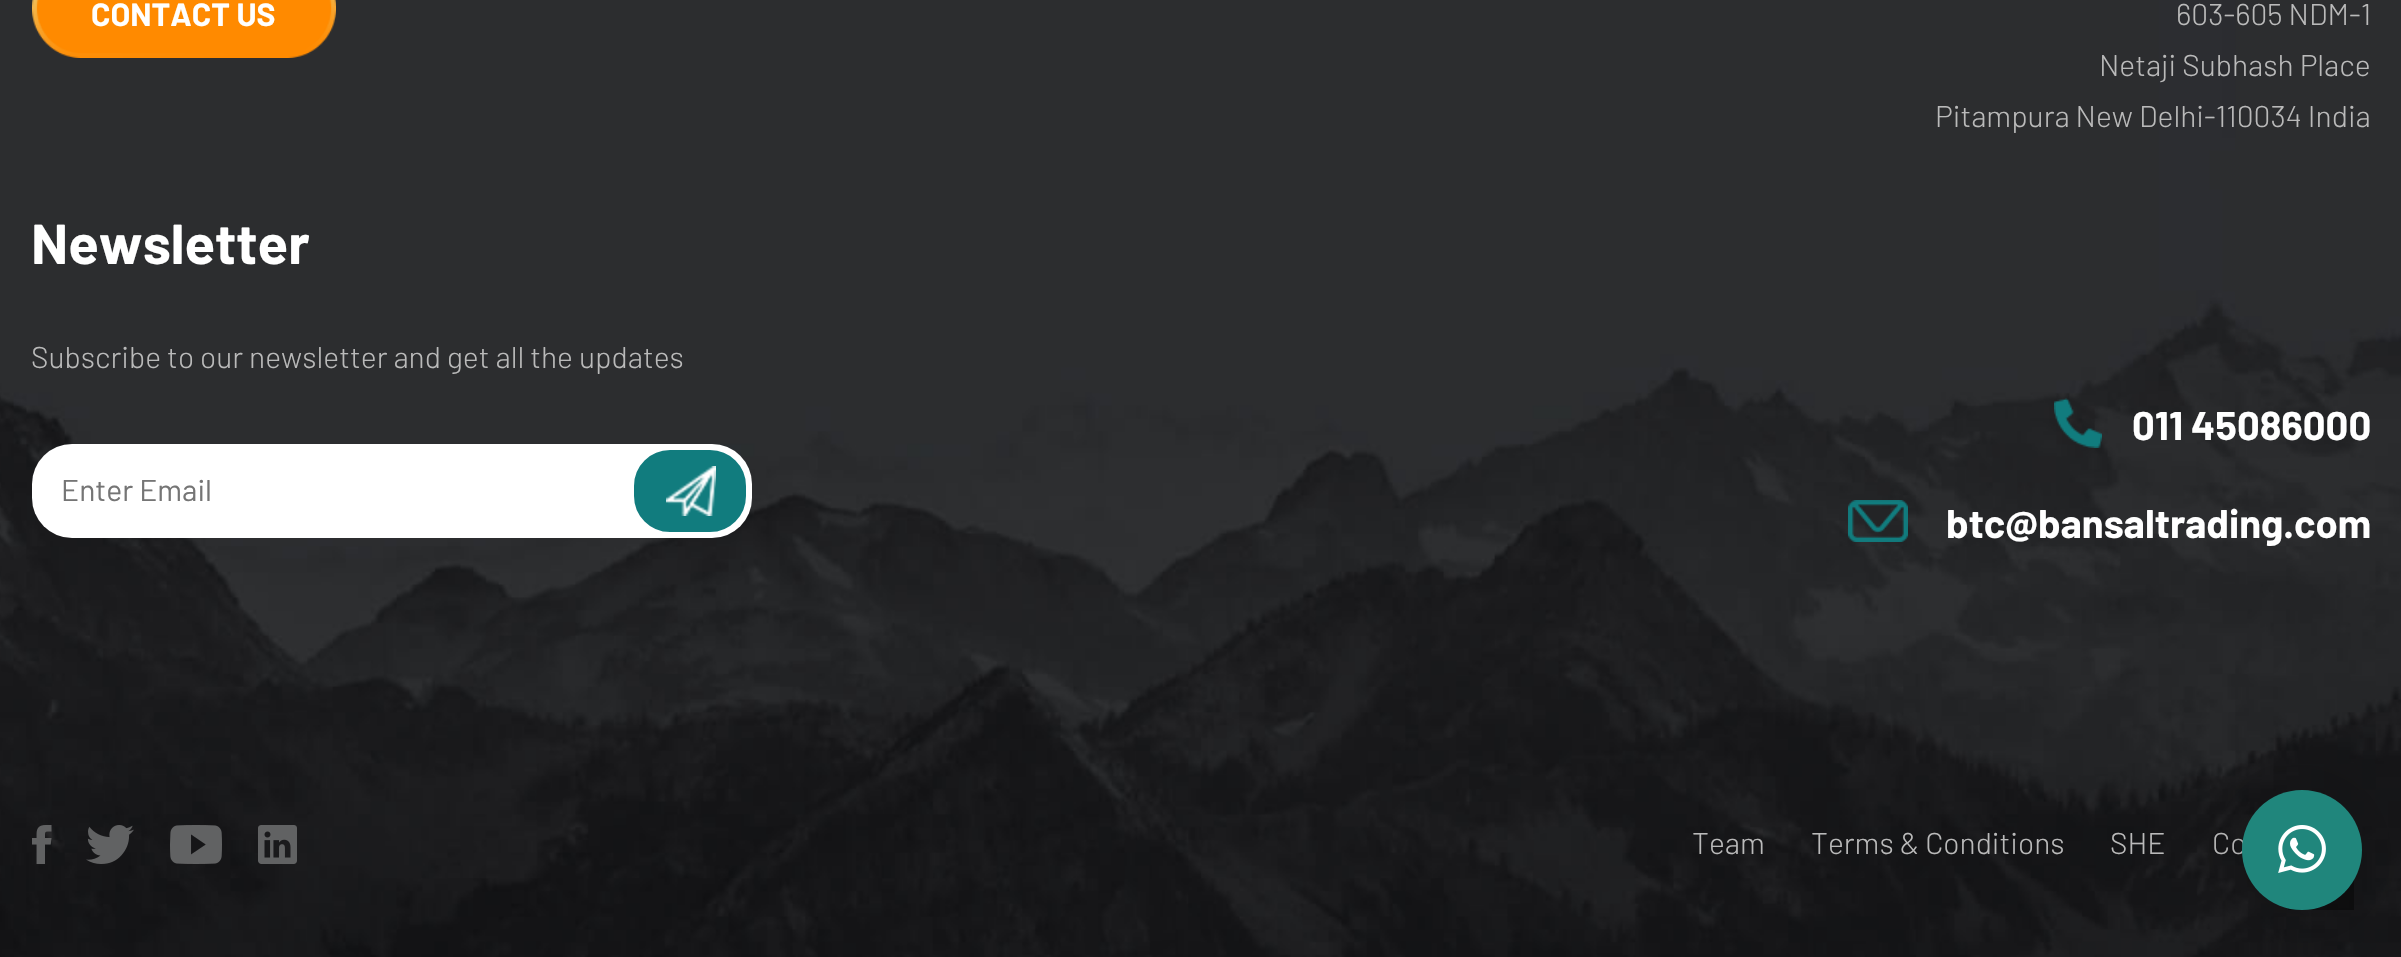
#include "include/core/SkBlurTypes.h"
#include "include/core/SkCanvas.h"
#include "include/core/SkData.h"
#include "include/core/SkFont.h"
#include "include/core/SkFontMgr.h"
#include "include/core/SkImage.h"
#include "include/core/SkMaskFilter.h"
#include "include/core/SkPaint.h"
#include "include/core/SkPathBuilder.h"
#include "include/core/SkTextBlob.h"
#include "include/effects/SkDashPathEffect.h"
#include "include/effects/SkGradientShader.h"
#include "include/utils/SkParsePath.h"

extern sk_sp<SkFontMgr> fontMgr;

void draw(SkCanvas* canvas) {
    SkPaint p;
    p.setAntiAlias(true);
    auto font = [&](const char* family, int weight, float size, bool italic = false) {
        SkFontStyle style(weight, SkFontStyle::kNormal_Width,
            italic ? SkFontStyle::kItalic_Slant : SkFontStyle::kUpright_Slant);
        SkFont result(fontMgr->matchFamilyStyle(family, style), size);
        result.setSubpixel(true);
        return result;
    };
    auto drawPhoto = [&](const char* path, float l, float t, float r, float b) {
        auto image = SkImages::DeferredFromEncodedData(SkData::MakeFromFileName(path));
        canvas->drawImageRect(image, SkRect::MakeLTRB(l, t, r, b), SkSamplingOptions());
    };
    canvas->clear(0xFFFFFFFF);
    drawPhoto("media/1.png", 0, 0, 2401, 957);
    drawPhoto("media/2.png", 32, 0, 336, 58);
    auto font1 = font("Barlow", 700, 32);
    p.setColor(0xFFFFFFFF);
    canvas->drawString("CONTACT US", 91, 26, font1, p);
    auto font2 = font("Barlow", 700, 56);
    canvas->drawString("Newsletter", 31, 264, font2, p);
    auto font3 = font("Barlow", 300, 30);
    p.setColor(0xFFBABABA);
    canvas->drawString("Subscribe to our newsletter and get all the updates", 31, 368, font3, p);
    p.setColor(0xFFFFFFFF);
    canvas->drawRoundRect(SkRect::MakeLTRB(32, 444, 752, 538), 40, 40, p);
    auto font4 = font("Barlow", 400, 30);
    p.setColor(0xFF757575);
    canvas->drawString("Enter Email", 61, 501, font4, p);
    p.setColor(0xFF117C7E);
    canvas->drawRoundRect(SkRect::MakeLTRB(632, 448, 748, 534), 38, 38, p);
    p.setStyle(SkPaint::kStroke_Style);
    p.setStrokeWidth(4);
    p.setColor(0xFFFFFFFF);
    canvas->drawRoundRect(SkRect::MakeLTRB(632, 448, 748, 534), 38, 38, p);
    drawPhoto("media/3.png", 666, 466, 716, 516);
    p.setStyle(SkPaint::kFill_Style);
    p.setColor(0xFFBABABA);
    {
        const struct { const char* s; float x, y; } items[] = {
            {"603-605 NDM-1", 2176, 25},
            {"Netaji Subhash Place", 2099, 76},
            {"Pitampura New Delhi-110034 India", 1935, 127},
        };
        for (auto [s, x, y] : items) {
            canvas->drawString(s, x, y, font3, p);
        }
    }
    drawPhoto("media/4.png", 2054, 398, 2102, 448);
    auto font5 = font("Barlow", 700, 40);
    p.setColor(0xFFFFFFFF);
    canvas->drawString("011 45086000", 2132, 440, font5, p);
    drawPhoto("media/5.png", 1848, 500, 1908, 542);
    canvas->drawString("btc@bansaltrading.com", 1946, 538, font5, p);
    drawPhoto("media/6.png", 32, 825, 52, 864);
    drawPhoto("media/7.png", 86, 825, 134, 864);
    drawPhoto("media/8.png", 170, 825, 222, 864);
    drawPhoto("media/9.png", 258, 825, 297, 864);
    p.setColor(0xFFBABABA);
    {
        const struct { const char* s; float x, y; } items[] = {
            {"Team", 1692, 854},
            {"Terms & Conditions", 1811, 854},
            {"SHE", 2110, 854},
            {"Co", 2212, 854},
        };
        for (auto [s, x, y] : items) {
            canvas->drawString(s, x, y, font3, p);
        }
    }
    p.setColor(0x66000000);
    canvas->drawRect(SkRect::MakeLTRB(2288, 879, 2354, 910), p);
    p.setColor(0x29000000);
    p.setMaskFilter(SkMaskFilter::MakeBlur(kNormal_SkBlurStyle, 32));
    canvas->drawRoundRect(SkRect::MakeLTRB(2242, 794, 2362, 914), 60, 60, p);
    p.setMaskFilter(nullptr);
    p.setColor(0xFF20867C);
    canvas->drawCircle(2302, 850, 60, p);
    drawPhoto("media/10.png", 2278, 825, 2326, 873);
}
